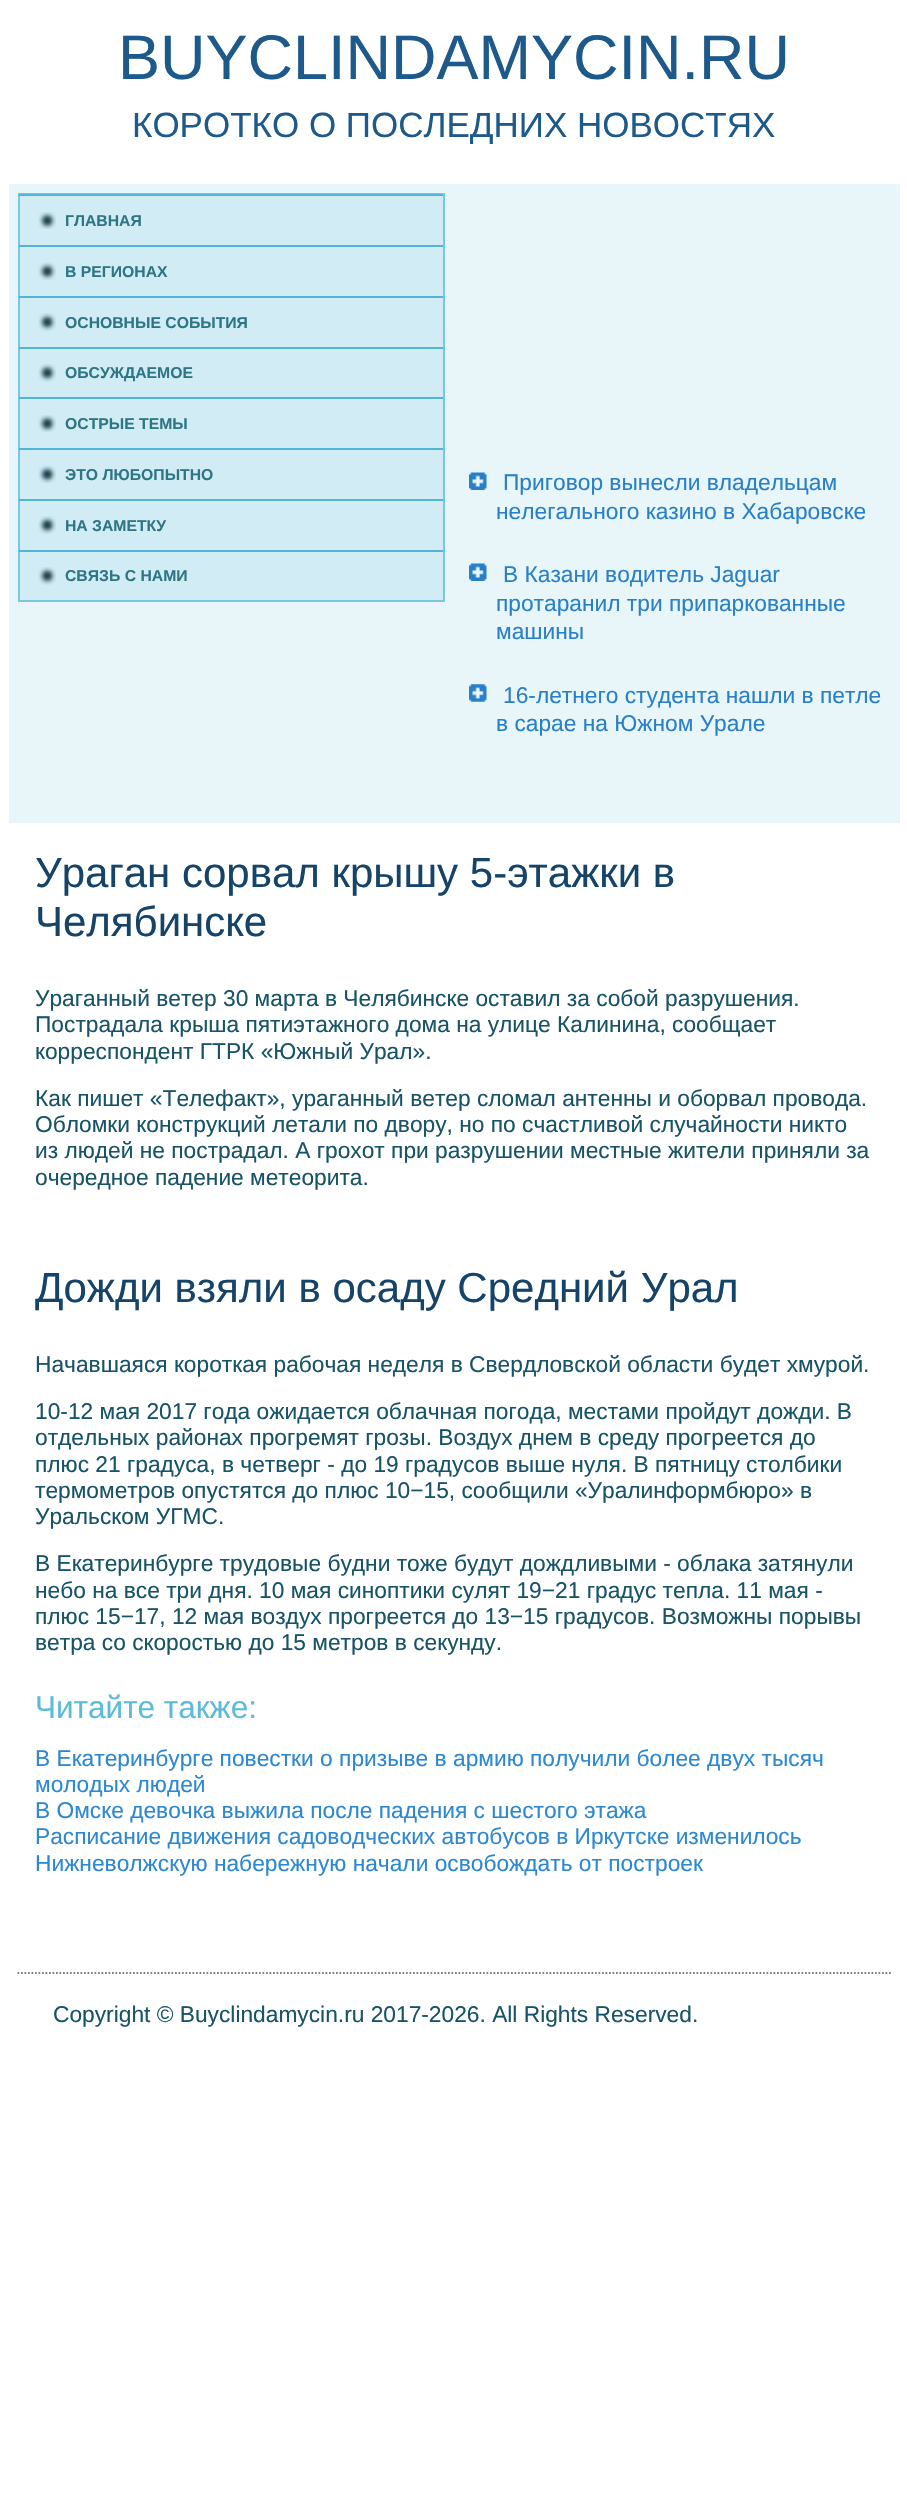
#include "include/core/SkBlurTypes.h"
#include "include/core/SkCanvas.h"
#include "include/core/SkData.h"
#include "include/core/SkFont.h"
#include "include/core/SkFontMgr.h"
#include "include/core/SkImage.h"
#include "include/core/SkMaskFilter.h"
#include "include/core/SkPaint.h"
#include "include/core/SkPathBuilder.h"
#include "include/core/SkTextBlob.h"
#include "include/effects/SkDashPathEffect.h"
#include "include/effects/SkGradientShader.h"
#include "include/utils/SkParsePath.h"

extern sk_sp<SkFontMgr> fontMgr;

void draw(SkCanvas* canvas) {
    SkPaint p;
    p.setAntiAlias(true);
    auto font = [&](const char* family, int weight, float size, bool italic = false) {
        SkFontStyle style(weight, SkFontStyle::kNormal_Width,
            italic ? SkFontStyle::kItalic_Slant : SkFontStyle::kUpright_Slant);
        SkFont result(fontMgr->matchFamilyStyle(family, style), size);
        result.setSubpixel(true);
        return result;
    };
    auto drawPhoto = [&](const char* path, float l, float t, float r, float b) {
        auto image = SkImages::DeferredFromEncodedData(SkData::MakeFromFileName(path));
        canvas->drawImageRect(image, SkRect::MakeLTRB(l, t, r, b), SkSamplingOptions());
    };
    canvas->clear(0xFFFFFFFF);
    auto font1 = font("Liberation Sans", 400, 63);
    p.setColor(0xFF1D5A8B);
    canvas->drawString("BUYCLINDAMYCIN.RU", 118, 79, font1, p);
    auto font2 = font("Liberation Sans", 400, 35);
    canvas->drawString("КОРОТКО О ПОСЛЕДНИХ НОВОСТЯХ", 132, 137, font2, p);
    p.setColor(0xFFE8F6FA);
    canvas->drawRect(SkRect::MakeLTRB(9, 184, 900, 823), p);
    p.setColor(0xFFD1ECF5);
    canvas->drawRect(SkRect::MakeLTRB(20, 196, 443, 600), p);
    p.setStyle(SkPaint::kStroke_Style);
    p.setStrokeWidth(2);
    p.setColor(0xFF7AC7E1);
    canvas->drawRect(SkRect::MakeLTRB(19, 194, 444, 601), p);
    p.setStyle(SkPaint::kFill_Style);
    p.setColor(0xFF50B6D7);
    canvas->drawRect(SkRect::MakeLTRB(19, 194, 443, 196), p);
    drawPhoto("media/1.png", 38, 212, 56, 229);
    auto font3 = font("Liberation Sans", 700, 15.75f);
    p.setColor(0xFF2E7684);
    canvas->drawString("ГЛАВНАЯ", 65, 226, font3, p);
    p.setColor(0xFF50B6D7);
    canvas->drawRect(SkRect::MakeLTRB(19, 245, 443, 247), p);
    drawPhoto("media/2.png", 38, 262, 56, 280);
    p.setColor(0xFF2E7684);
    canvas->drawString("В РЕГИОНАХ", 65, 277, font3, p);
    p.setColor(0xFF50B6D7);
    canvas->drawRect(SkRect::MakeLTRB(19, 296, 443, 298), p);
    drawPhoto("media/3.png", 38, 313, 56, 331);
    p.setColor(0xFF2E7684);
    canvas->drawString("ОСНОВНЫЕ СОБЫТИЯ", 65, 328, font3, p);
    p.setColor(0xFF50B6D7);
    canvas->drawRect(SkRect::MakeLTRB(19, 347, 443, 349), p);
    drawPhoto("media/4.png", 38, 364, 56, 382);
    p.setColor(0xFF2E7684);
    canvas->drawString("ОБСУЖДАЕМОЕ", 65, 378, font3, p);
    p.setColor(0xFF50B6D7);
    canvas->drawRect(SkRect::MakeLTRB(19, 397, 443, 399), p);
    drawPhoto("media/5.png", 38, 415, 56, 432);
    p.setColor(0xFF2E7684);
    canvas->drawString("ОСТРЫЕ ТЕМЫ", 65, 429, font3, p);
    p.setColor(0xFF50B6D7);
    canvas->drawRect(SkRect::MakeLTRB(19, 448, 443, 450), p);
    drawPhoto("media/2.png", 38, 465, 56, 483);
    p.setColor(0xFF2E7684);
    canvas->drawString("ЭТО ЛЮБОПЫТНО", 65, 480, font3, p);
    p.setColor(0xFF50B6D7);
    canvas->drawRect(SkRect::MakeLTRB(19, 499, 443, 501), p);
    drawPhoto("media/3.png", 38, 516, 56, 534);
    p.setColor(0xFF2E7684);
    canvas->drawString("НА ЗАМЕТКУ", 65, 531, font3, p);
    p.setColor(0xFF50B6D7);
    canvas->drawRect(SkRect::MakeLTRB(19, 550, 443, 552), p);
    drawPhoto("media/4.png", 38, 567, 56, 585);
    p.setColor(0xFF2E7684);
    canvas->drawString("СВЯЗЬ С НАМИ", 65, 581, font3, p);
    drawPhoto("media/6.png", 469, 472, 487, 490);
    auto font4 = font("Liberation Sans", 400, 22.75f);
    p.setColor(0xFF2A80C6);
    canvas->drawString("Приговор вынесли владельцам", 503, 490, font4, p);
    canvas->drawString("нелегального казино в Хабаровске", 496, 519, font4, p);
    drawPhoto("media/6.png", 469, 563, 487, 581);
    {
        const struct { const char* s; float x, y; } items[] = {
            {"В Казани водитель Jaguar", 503, 582},
            {"протаранил три припаркованные", 496, 611},
            {"машины", 496, 639},
        };
        for (auto [s, x, y] : items) {
            canvas->drawString(s, x, y, font4, p);
        }
    }
    drawPhoto("media/7.png", 469, 684, 487, 702);
    canvas->drawString("16-летнего студента нашли в петле", 503, 703, font4, p);
    canvas->drawString("в сарае на Южном Урале", 496, 731, font4, p);
    auto font5 = font("Liberation Sans", 400, 42);
    p.setColor(0xFF164469);
    canvas->drawString("Ураган сорвал крышу 5-этажки в", 35, 887, font5, p);
    canvas->drawString("Челябинске", 35, 936, font5, p);
    p.setColor(0xFF185468);
    {
        const struct { const char* s; float x, y; } items[] = {
            {"Ураганный ветер 30 марта в Челябинске оставил за собой разрушения.", 35, 1006},
            {"Пострадала крыша пятиэтажного дома на улице Калинина, сообщает", 35, 1032},
            {"корреспондент ГТРК «Южный Урал».", 35, 1059},
            {"Как пишет «Телефакт», ураганный ветер сломал антенны и оборвал провода.", 35, 1106},
            {"Обломки конструкций летали по двору, но по счастливой случайности никто", 35, 1132},
            {"из людей не пострадал. А грохот при разрушении местные жители приняли за", 35, 1158},
            {"очередное падение метеорита.", 35, 1185},
        };
        for (auto [s, x, y] : items) {
            canvas->drawString(s, x, y, font4, p);
        }
    }
    p.setColor(0xFF164469);
    canvas->drawString("Дожди взяли в осаду Средний Урал", 35, 1302, font5, p);
    p.setColor(0xFF185468);
    {
        const struct { const char* s; float x, y; } items[] = {
            {"Начавшаяся короткая рабочая неделя в Свердловской области будет хмурой.", 35, 1372},
            {"10-12 мая 2017 года ожидается облачная погода, местами пройдут дожди. В", 35, 1419},
            {"отдельных районах прогремят грозы. Воздух днем в среду прогреется до", 35, 1445},
            {"плюс 21 градуса, в четверг - до 19 градусов выше нуля. В пятницу столбики", 35, 1472},
            {"термометров опустятся до плюс 10−15, сообщили «Уралинформбюро» в", 35, 1498},
            {"Уральском УГМС.", 35, 1524},
            {"В Екатеринбурге трудовые будни тоже будут дождливыми - облака затянули", 35, 1571},
            {"небо на все три дня. 10 мая синоптики сулят 19−21 градус тепла. 11 мая -", 35, 1598},
            {"плюс 15−17, 12 мая воздух прогреется до 13−15 градусов. Возможны порывы", 35, 1624},
            {"ветра со скоростью до 15 метров в секунду.", 35, 1650},
        };
        for (auto [s, x, y] : items) {
            canvas->drawString(s, x, y, font4, p);
        }
    }
    auto font6 = font("Liberation Sans", 400, 31.5f);
    p.setColor(0xFF5DBBDA);
    canvas->drawString("Читайте также:", 35, 1718, font6, p);
    p.setColor(0xFF2D88D2);
    {
        const struct { const char* s; float x, y; } items[] = {
            {"В Екатеринбурге повестки о призыве в армию получили более двух тысяч", 35, 1766},
            {"молодых людей", 35, 1792},
            {"В Омске девочка выжила после падения с шестого этажа", 35, 1818},
            {"Расписание движения садоводческих автобусов в Иркутске изменилось", 35, 1844},
            {"Нижневолжскую набережную начали освобождать от построек", 35, 1871},
        };
        for (auto [s, x, y] : items) {
            canvas->drawString(s, x, y, font4, p);
        }
    }
    p.setStyle(SkPaint::kStroke_Style);
    p.setStrokeWidth(1.8f);
    p.setColor(0xFF808080);
    p.setPathEffect(SkDashPathEffect::Make({{1.75f, 1.75f}}, 0));
    canvas->drawPath(SkPathBuilder().moveTo(17.5f, 1973).lineTo(891, 1973).detach(), p);
    p.setPathEffect(nullptr);
    p.setStyle(SkPaint::kFill_Style);
    p.setColor(0xFF185468);
    canvas->drawString("Copyright © Buyclindamycin.ru 2017-2026. All Rights Reserved.", 53, 2022, font4, p);
}
